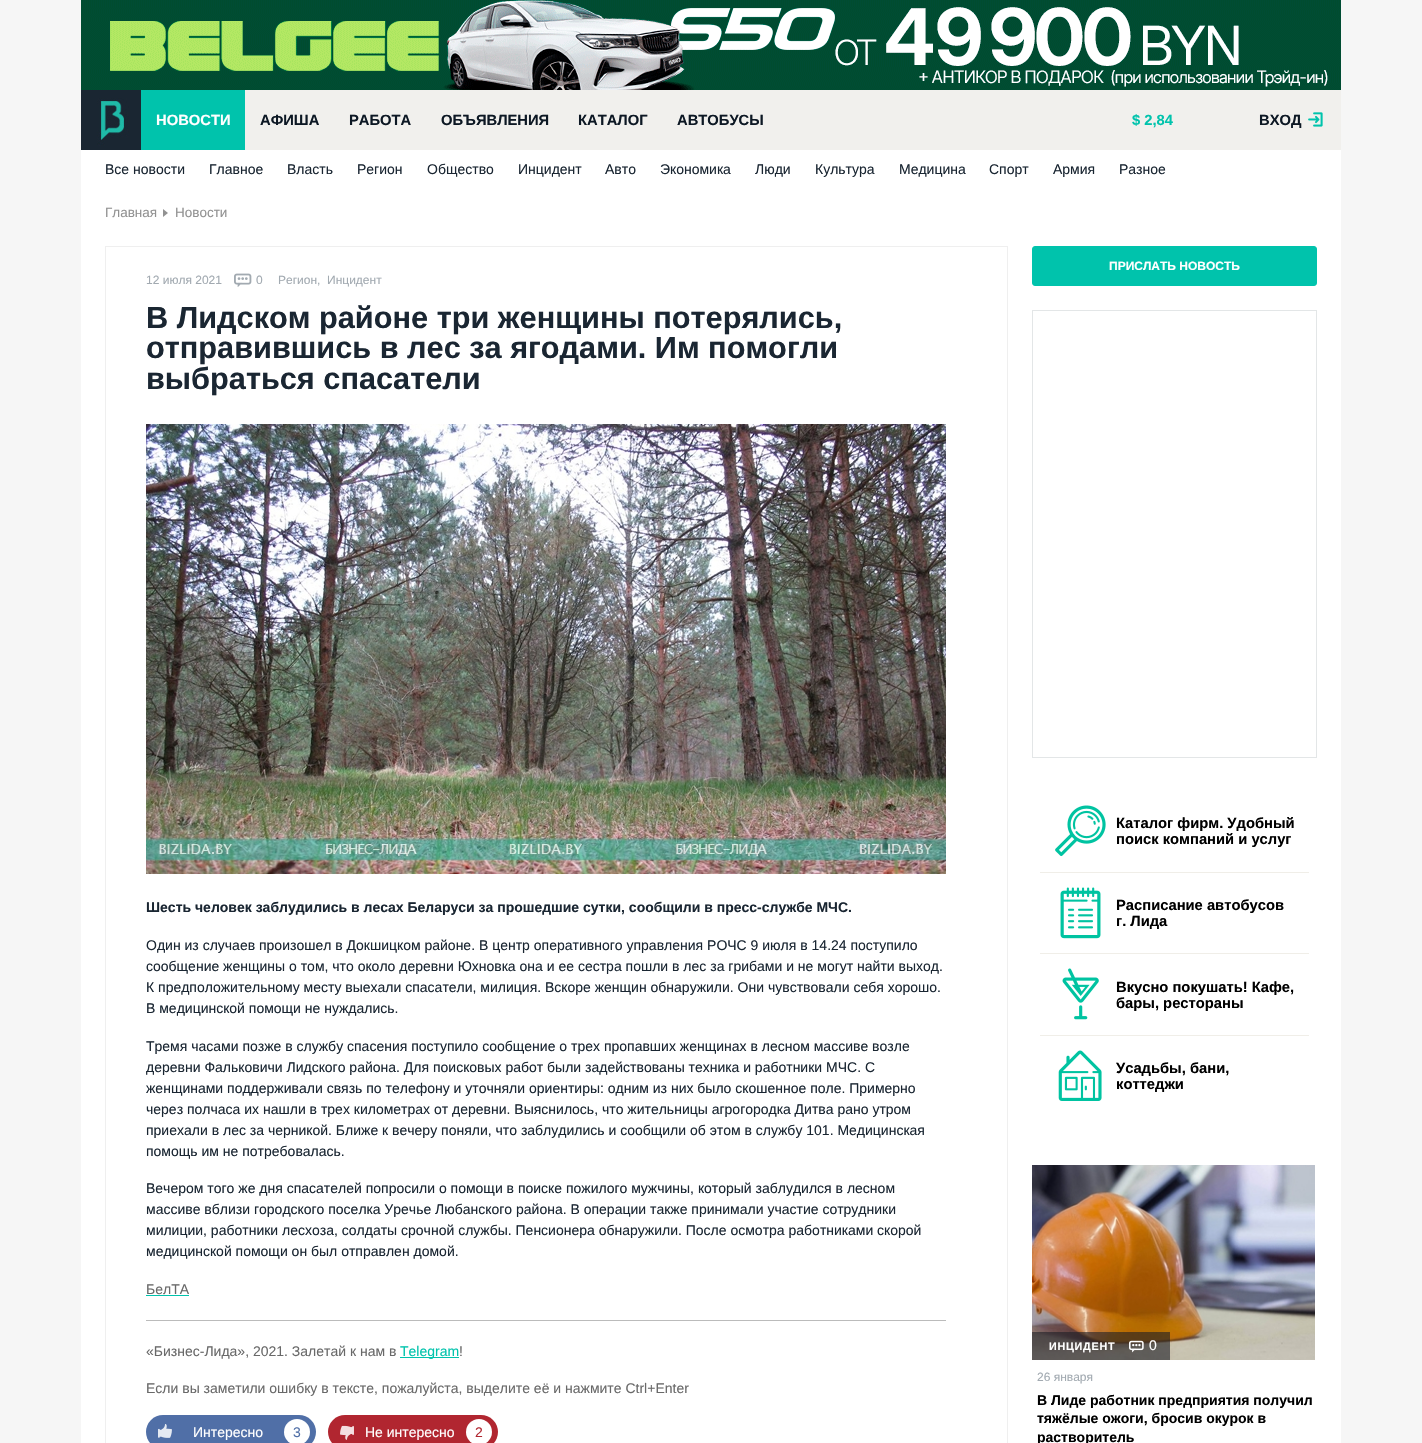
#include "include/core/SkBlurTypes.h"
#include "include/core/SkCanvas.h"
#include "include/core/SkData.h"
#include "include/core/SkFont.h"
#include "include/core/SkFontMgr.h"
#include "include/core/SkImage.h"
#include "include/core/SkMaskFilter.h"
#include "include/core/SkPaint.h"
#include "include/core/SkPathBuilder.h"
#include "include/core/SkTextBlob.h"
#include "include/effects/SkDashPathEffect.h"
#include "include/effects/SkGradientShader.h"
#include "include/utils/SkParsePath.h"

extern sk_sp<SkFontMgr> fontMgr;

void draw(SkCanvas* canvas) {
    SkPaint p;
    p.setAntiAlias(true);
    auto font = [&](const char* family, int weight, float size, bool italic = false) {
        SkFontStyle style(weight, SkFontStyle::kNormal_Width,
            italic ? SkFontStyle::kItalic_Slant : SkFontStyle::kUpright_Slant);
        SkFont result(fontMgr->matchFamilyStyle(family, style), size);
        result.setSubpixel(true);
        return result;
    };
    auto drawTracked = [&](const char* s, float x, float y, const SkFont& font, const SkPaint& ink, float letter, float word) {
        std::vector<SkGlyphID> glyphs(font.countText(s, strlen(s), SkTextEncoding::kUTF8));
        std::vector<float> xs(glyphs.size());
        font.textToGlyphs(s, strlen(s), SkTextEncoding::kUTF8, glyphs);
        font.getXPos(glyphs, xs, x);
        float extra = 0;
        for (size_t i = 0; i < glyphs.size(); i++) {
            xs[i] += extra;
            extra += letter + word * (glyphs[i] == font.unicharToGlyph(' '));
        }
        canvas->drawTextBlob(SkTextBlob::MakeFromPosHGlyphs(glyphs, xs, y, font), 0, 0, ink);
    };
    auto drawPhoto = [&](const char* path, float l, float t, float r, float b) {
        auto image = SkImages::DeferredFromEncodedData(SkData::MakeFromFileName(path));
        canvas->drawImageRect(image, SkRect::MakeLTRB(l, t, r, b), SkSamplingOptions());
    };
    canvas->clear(0xFFF6F6F6);
    p.setColor(0xFFFFFFFF);
    canvas->drawRect(SkRect::MakeLTRB(81, 150, 1341, 1443), p);
    drawPhoto("media/1.png", 81, 0, 1341, 90);
    p.setColor(0xFFF1F0ED);
    canvas->drawRect(SkRect::MakeLTRB(245, 90, 1341, 150), p);
    drawPhoto("media/2.png", 81, 90, 141, 150);
    p.setColor(0xFF00C3AC);
    canvas->drawRect(SkRect::MakeLTRB(141, 90, 245, 150), p);
    auto font1 = font("Arimo", 700, 14.75f);
    p.setColor(0xFFFFFFFF);
    canvas->drawString("НОВОСТИ", 156, 125, font1, p);
    p.setColor(0xFF0D1824);
    {
        const struct { const char* s; float x, y; } items[] = {
            {"АФИША", 260, 125},
            {"РАБОТА", 349, 125},
            {"ОБЪЯВЛЕНИЯ", 441, 125},
            {"КАТАЛОГ", 578, 125},
            {"АВТОБУСЫ", 677, 125},
        };
        for (auto [s, x, y] : items) {
            canvas->drawString(s, x, y, font1, p);
        }
    }
    p.setColor(0xFF00C3AC);
    canvas->drawString("$ 2,84", 1132, 125, font1, p);
    p.setColor(0xFF0D1824);
    canvas->drawString("ВХОД", 1259, 125, font1, p);
    drawPhoto("media/3.png", 1308, 112, 1323, 127);
    auto font2 = font("Liberation Sans", 400, 14);
    p.setColor(0xFF1A2632);
    {
        const struct { const char* s; float x, y; } items[] = {
            {"Все новости", 105, 174},
            {"Главное", 209, 174},
            {"Власть", 287, 174},
            {"Регион", 357, 174},
            {"Общество", 427, 174},
            {"Инцидент", 518, 174},
            {"Авто", 605, 174},
            {"Экономика", 660, 174},
            {"Люди", 755, 174},
            {"Культура", 815, 174},
            {"Медицина", 899, 174},
            {"Спорт", 989, 174},
            {"Армия", 1053, 174},
            {"Разное", 1119, 174},
        };
        for (auto [s, x, y] : items) {
            canvas->drawString(s, x, y, font2, p);
        }
    }
    auto font3 = font("Liberation Sans", 400, 13.5f);
    p.setColor(0xFF929292);
    canvas->drawString("Главная", 105, 217, font3, p);
    canvas->drawPath(SkPathBuilder().moveTo(163, 217).lineTo(163, 209).lineTo(168, 213).close().detach(), p);
    canvas->drawString("Новости", 175, 217, font3, p);
    p.setStyle(SkPaint::kStroke_Style);
    p.setStrokeWidth(1);
    p.setColor(0xFFEFEFEF);
    canvas->drawRect(SkRect::MakeLTRB(105.5f, 246.5f, 1007.5f, 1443.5f), p);
    auto font4 = font("Arimo", 400, 12);
    p.setStyle(SkPaint::kFill_Style);
    p.setColor(0xFFA2AAB1);
    canvas->drawString("12 июля 2021", 146, 284, font4, p);
    drawPhoto("media/4.png", 234, 273, 252, 287);
    auto font5 = font("Liberation Sans", 400, 12);
    {
        const struct { const char* s; float x, y; } items[] = {
            {"0", 256, 284},
            {"Регион,", 278, 284},
            {"Инцидент", 327, 284},
        };
        for (auto [s, x, y] : items) {
            canvas->drawString(s, x, y, font5, p);
        }
    }
    auto font6 = font("Arimo", 700, 30.7f);
    p.setColor(0xFF1A2632);
    {
        const struct { const char* s; float x, y; } items[] = {
            {"В Лидском районе три женщины потерялись,", 146, 328},
            {"отправившись в лес за ягодами. Им помогли", 146, 358},
            {"выбраться спасатели", 146, 389},
        };
        for (auto [s, x, y] : items) {
            canvas->drawString(s, x, y, font6, p);
        }
    }
    drawPhoto("media/5.png", 146, 424, 946, 874);
    auto font7 = font("Liberation Sans", 700, 14);
    canvas->drawString("Шесть человек заблудились в лесах Беларуси за прошедшие сутки, сообщили в пресс-службе МЧС.", 146, 912, font7, p);
    {
        const struct { const char* s; float x, y; } items[] = {
            {"Один из случаев произошел в Докшицком районе. В центр оперативного управления РОЧС 9 июля в 14.24 поступило", 146, 950},
            {"сообщение женщины о том, что около деревни Юхновка она и ее сестра пошли в лес за грибами и не могут найти выход.", 146, 971},
            {"К предположительному месту выехали спасатели, милиция. Вскоре женщин обнаружили. Они чувствовали себя хорошо.", 146, 992},
            {"В медицинской помощи не нуждались.", 146, 1013},
            {"Тремя часами позже в службу спасения поступило сообщение о трех пропавших женщинах в лесном массиве возле", 146, 1051},
            {"деревни Фальковичи Лидского района. Для поисковых работ были задействованы техника и работники МЧС. С", 146, 1072},
            {"женщинами поддерживали связь по телефону и уточняли ориентиры: одним из них было скошенное поле. Примерно", 146, 1093},
            {"через полчаса их нашли в трех километрах от деревни. Выяснилось, что жительницы агрогородка Дитва рано утром", 146, 1114},
            {"приехали в лес за черникой. Ближе к вечеру поняли, что заблудились и сообщили об этом в службу 101. Медицинская", 146, 1135},
            {"помощь им не потребовалась.", 146, 1156},
            {"Вечером того же дня спасателей попросили о помощи в поиске пожилого мужчины, который заблудился в лесном", 146, 1193},
            {"массиве вблизи городского поселка Уречье Любанского района. В операции также принимали участие сотрудники", 146, 1214},
            {"милиции, работники лесхоза, солдаты срочной службы. Пенсионера обнаружили. После осмотра работниками скорой", 146, 1235},
            {"медицинской помощи он был отправлен домой.", 146, 1256},
        };
        for (auto [s, x, y] : items) {
            canvas->drawString(s, x, y, font2, p);
        }
    }
    p.setColor(0xFF696969);
    canvas->drawString("БелТА", 146, 1294, font2, p);
    p.setColor(0xFF00C3AC);
    canvas->drawRect(SkRect::MakeLTRB(146, 1295, 189, 1296), p);
    p.setColor(0xFFBBBBBB);
    canvas->drawRect(SkRect::MakeLTRB(146, 1320, 946, 1321), p);
    p.setColor(0xFF696969);
    canvas->drawString("«Бизнес-Лида», 2021. Залетай к нам в", 146, 1356, font2, p);
    p.setColor(0xFF00C3AC);
    canvas->drawRect(SkRect::MakeLTRB(400, 1357, 459, 1358), p);
    canvas->drawString("Telegram", 400, 1356, font2, p);
    p.setColor(0xFF696969);
    canvas->drawString("!", 459, 1356, font2, p);
    canvas->drawString("Если вы заметили ошибку в тексте, пожалуйста, выделите её и нажмите Ctrl+Enter", 146, 1393, font2, p);
    p.setColor(0xFF506FA7);
    canvas->drawRoundRect(SkRect::MakeLTRB(146, 1415, 316, 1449), 17, 17, p);
    drawPhoto("media/6.png", 158, 1424, 172, 1438);
    p.setColor(0xFFFFFFFF);
    canvas->drawString("Интересно", 193, 1437, font2, p);
    canvas->drawCircle(297, 1432, 13, p);
    p.setColor(0xFF506FA7);
    canvas->drawString("3", 293, 1437, font2, p);
    p.setColor(0xFFB12630);
    canvas->drawRoundRect(SkRect::MakeLTRB(328, 1415, 498, 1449), 17, 17, p);
    drawPhoto("media/7.png", 340, 1425, 354, 1440);
    p.setColor(0xFFFFFFFF);
    canvas->drawString("Не интересно", 365, 1437, font2, p);
    canvas->drawCircle(479, 1432, 13, p);
    p.setColor(0xFFB12630);
    canvas->drawString("2", 475, 1437, font2, p);
    p.setColor(0xFF00C3AC);
    canvas->drawRoundRect(SkRect::MakeLTRB(1032.5f, 246.5f, 1316.5f, 285.5f), 2.5f, 2.5f, p);
    p.setStyle(SkPaint::kStroke_Style);
    canvas->drawRoundRect(SkRect::MakeLTRB(1032.5f, 246.5f, 1316.5f, 285.5f), 2.5f, 2.5f, p);
    auto font8 = font("Arimo", 700, 12);
    p.setStyle(SkPaint::kFill_Style);
    p.setColor(0xFFFFFFFF);
    canvas->drawString("ПРИСЛАТЬ НОВОСТЬ", 1109, 270, font8, p);
    p.setStyle(SkPaint::kStroke_Style);
    p.setColor(0xFFE3E6E7);
    canvas->drawRect(SkRect::MakeLTRB(1032.5f, 310.5f, 1316.5f, 757.5f), p);
    drawPhoto("media/8.png", 1055, 805, 1106, 857);
    p.setStyle(SkPaint::kFill_Style);
    p.setColor(0xFF000000);
    canvas->drawString("Каталог фирм. Удобный", 1116, 828, font1, p);
    canvas->drawString("поиск компаний и услуг", 1116, 844, font1, p);
    p.setColor(0xFFF0EEE8);
    canvas->drawRect(SkRect::MakeLTRB(1040, 872, 1309, 873), p);
    drawPhoto("media/9.png", 1060, 887, 1101, 939);
    p.setColor(0xFF000000);
    canvas->drawString("Расписание автобусов", 1116, 910, font1, p);
    canvas->drawString("г. Лида", 1116, 926, font1, p);
    p.setColor(0xFFF0EEE8);
    canvas->drawRect(SkRect::MakeLTRB(1040, 953, 1309, 954), p);
    drawPhoto("media/10.png", 1062, 968, 1099, 1020);
    p.setColor(0xFF000000);
    canvas->drawString("Вкусно покушать! Кафе,", 1116, 992, font1, p);
    canvas->drawString("бары, рестораны", 1116, 1008, font1, p);
    p.setColor(0xFFF0EEE8);
    canvas->drawRect(SkRect::MakeLTRB(1040, 1035, 1309, 1036), p);
    drawPhoto("media/11.png", 1058, 1050, 1102, 1101);
    p.setColor(0xFF000000);
    canvas->drawString("Усадьбы, бани,", 1116, 1073, font1, p);
    canvas->drawString("коттеджи", 1116, 1089, font1, p);
    drawPhoto("media/12.png", 1032, 1165, 1315, 1360);
    p.setColor(0x991B1C25);
    canvas->drawRect(SkRect::MakeLTRB(1032, 1332, 1170, 1360), p);
    auto font9 = font("Arimo", 700, 10.75f);
    p.setColor(0xFFFFFFFF);
    drawTracked("ИНЦИДЕНТ", 1049, 1350, font9, p, 0.75f, 0);
    drawPhoto("media/13.png", 1129, 1340, 1144, 1353);
    auto font10 = font("Arimo", 400, 14);
    drawTracked("0", 1149, 1350, font10, p, 0.75f, 0);
    p.setColor(0xFFA2AAB1);
    canvas->drawString("26 января", 1037, 1381, font4, p);
    auto font11 = font("Arimo", 700, 14);
    p.setColor(0xFF000000);
    {
        const struct { const char* s; float x, y; } items[] = {
            {"В Лиде работник предприятия получил", 1037, 1405},
            {"тяжёлые ожоги, бросив окурок в", 1037, 1423},
            {"растворитель", 1037, 1442},
        };
        for (auto [s, x, y] : items) {
            canvas->drawString(s, x, y, font11, p);
        }
    }
}
